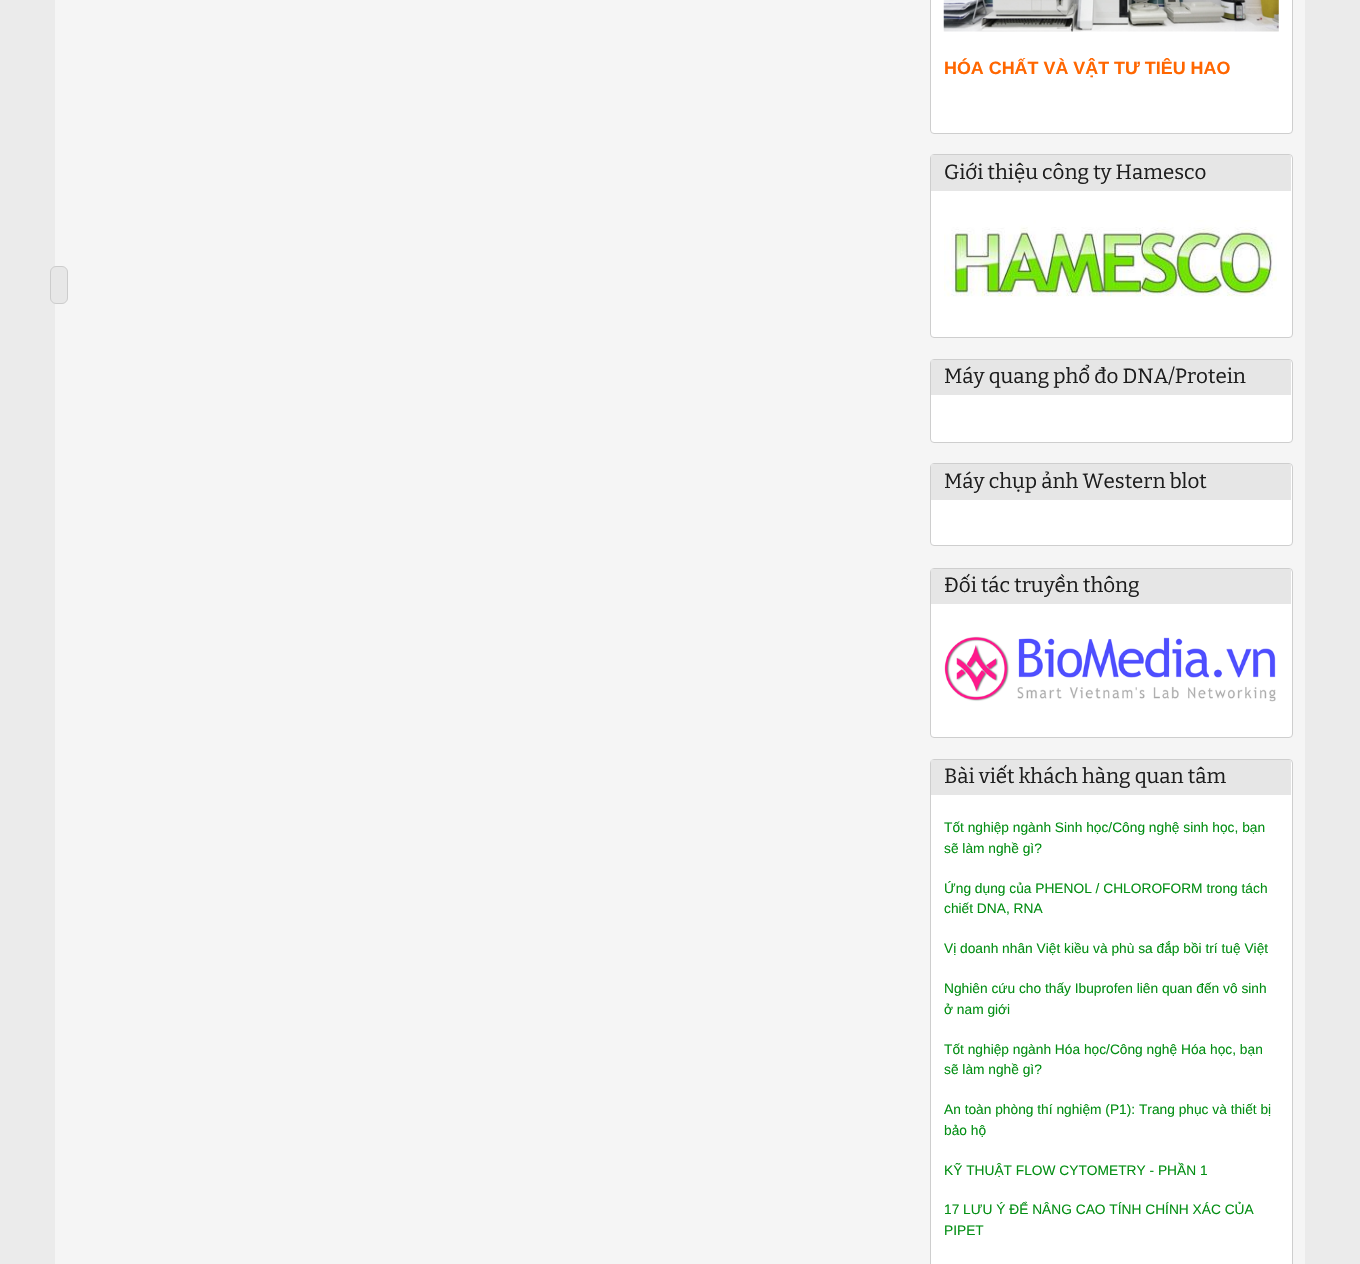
#include "include/core/SkBlurTypes.h"
#include "include/core/SkCanvas.h"
#include "include/core/SkData.h"
#include "include/core/SkFont.h"
#include "include/core/SkFontMgr.h"
#include "include/core/SkImage.h"
#include "include/core/SkMaskFilter.h"
#include "include/core/SkPaint.h"
#include "include/core/SkPathBuilder.h"
#include "include/core/SkTextBlob.h"
#include "include/effects/SkDashPathEffect.h"
#include "include/effects/SkGradientShader.h"
#include "include/utils/SkParsePath.h"

extern sk_sp<SkFontMgr> fontMgr;

void draw(SkCanvas* canvas) {
    SkPaint p;
    p.setAntiAlias(true);
    auto font = [&](const char* family, int weight, float size, bool italic = false) {
        SkFontStyle style(weight, SkFontStyle::kNormal_Width,
            italic ? SkFontStyle::kItalic_Slant : SkFontStyle::kUpright_Slant);
        SkFont result(fontMgr->matchFamilyStyle(family, style), size);
        result.setSubpixel(true);
        return result;
    };
    auto drawPhoto = [&](const char* path, float l, float t, float r, float b) {
        auto image = SkImages::DeferredFromEncodedData(SkData::MakeFromFileName(path));
        canvas->drawImageRect(image, SkRect::MakeLTRB(l, t, r, b), SkSamplingOptions());
    };
    canvas->clear(0xFFEBEBEB);
    p.setColor(0xFFF5F5F5);
    canvas->drawRect(SkRect::MakeLTRB(55, 0, 1305, 1264), p);
    p.setColor(0xFFE7E7E7);
    canvas->drawRoundRect(SkRect::MakeLTRB(50.5f, 266.5f, 67.5f, 303.5f), 5.5f, 5.5f, p);
    p.setStyle(SkPaint::kStroke_Style);
    p.setStrokeWidth(1);
    p.setColor(0xFFCCCCCC);
    canvas->drawRoundRect(SkRect::MakeLTRB(50.5f, 266.5f, 67.5f, 303.5f), 5.5f, 5.5f, p);
    p.setStyle(SkPaint::kFill_Style);
    p.setColor(0xFFFFFFFF);
    canvas->drawRoundRect(SkRect::MakeLTRB(930.5f, -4.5f, 1292.5f, 133.5f), 3.5f, 3.5f, p);
    p.setStyle(SkPaint::kStroke_Style);
    p.setColor(0xFFCECECE);
    canvas->drawRoundRect(SkRect::MakeLTRB(930.5f, -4.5f, 1292.5f, 133.5f), 3.5f, 3.5f, p);
    drawPhoto("media/1.png", 943, 0, 1279, 32);
    auto font1 = font("Liberation Sans", 700, 17.9f);
    p.setStyle(SkPaint::kFill_Style);
    p.setColor(0xFFFF6600);
    canvas->drawString("HÓA CHẤT VÀ VẬT TƯ TIÊU HAO", 944, 74, font1, p);
    p.setColor(0xFFFFFFFF);
    canvas->drawRoundRect(SkRect::MakeLTRB(930.5f, 154.5f, 1292.5f, 337.5f), 3.5f, 3.5f, p);
    p.setStyle(SkPaint::kStroke_Style);
    p.setColor(0xFFCECECE);
    canvas->drawRoundRect(SkRect::MakeLTRB(930.5f, 154.5f, 1292.5f, 337.5f), 3.5f, 3.5f, p);
    p.setStyle(SkPaint::kFill_Style);
    p.setColor(0xFFE6E6E6);
    canvas->drawRect(SkRect::MakeLTRB(931, 155, 1291, 191), p);
    auto font2 = font("Bitter", 100, 20.6f);
    p.setColor(0xFF1D1D1D);
    canvas->drawString("Giới thiệu công ty Hamesco", 944, 179, font2, p);
    drawPhoto("media/2.png", 944, 220, 1277, 297);
    p.setColor(0xFFFFFFFF);
    canvas->drawRoundRect(SkRect::MakeLTRB(930.5f, 359.5f, 1292.5f, 442.5f), 3.5f, 3.5f, p);
    p.setStyle(SkPaint::kStroke_Style);
    p.setColor(0xFFCECECE);
    canvas->drawRoundRect(SkRect::MakeLTRB(930.5f, 359.5f, 1292.5f, 442.5f), 3.5f, 3.5f, p);
    p.setStyle(SkPaint::kFill_Style);
    p.setColor(0xFFE6E6E6);
    canvas->drawRect(SkRect::MakeLTRB(931, 360, 1291, 395), p);
    p.setColor(0xFF1D1D1D);
    canvas->drawString("Máy quang phổ đo DNA/Protein", 944, 383, font2, p);
    p.setColor(0xFFFFFFFF);
    canvas->drawRoundRect(SkRect::MakeLTRB(930.5f, 463.5f, 1292.5f, 545.5f), 3.5f, 3.5f, p);
    p.setStyle(SkPaint::kStroke_Style);
    p.setColor(0xFFCECECE);
    canvas->drawRoundRect(SkRect::MakeLTRB(930.5f, 463.5f, 1292.5f, 545.5f), 3.5f, 3.5f, p);
    p.setStyle(SkPaint::kFill_Style);
    p.setColor(0xFFE6E6E6);
    canvas->drawRect(SkRect::MakeLTRB(931, 464, 1291, 500), p);
    p.setColor(0xFF1D1D1D);
    canvas->drawString("Máy chụp ảnh Western blot", 944, 488, font2, p);
    p.setColor(0xFFFFFFFF);
    canvas->drawRoundRect(SkRect::MakeLTRB(930.5f, 568.5f, 1292.5f, 737.5f), 3.5f, 3.5f, p);
    p.setStyle(SkPaint::kStroke_Style);
    p.setColor(0xFFCECECE);
    canvas->drawRoundRect(SkRect::MakeLTRB(930.5f, 568.5f, 1292.5f, 737.5f), 3.5f, 3.5f, p);
    p.setStyle(SkPaint::kFill_Style);
    p.setColor(0xFFE6E6E6);
    canvas->drawRect(SkRect::MakeLTRB(931, 569, 1291, 604), p);
    p.setColor(0xFF1D1D1D);
    canvas->drawString("Đối tác truyền thông", 944, 592, font2, p);
    drawPhoto("media/3.png", 944, 636, 1276, 702);
    p.setColor(0xFFFFFFFF);
    canvas->drawRoundRect(SkRect::MakeLTRB(930.5f, 759.5f, 1292.5f, 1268.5f), 3.5f, 3.5f, p);
    p.setStyle(SkPaint::kStroke_Style);
    p.setColor(0xFFCECECE);
    canvas->drawRoundRect(SkRect::MakeLTRB(930.5f, 759.5f, 1292.5f, 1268.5f), 3.5f, 3.5f, p);
    p.setStyle(SkPaint::kFill_Style);
    p.setColor(0xFFE6E6E6);
    canvas->drawRect(SkRect::MakeLTRB(931, 760, 1291, 795), p);
    p.setColor(0xFF1D1D1D);
    canvas->drawString("Bài viết khách hàng quan tâm", 944, 783, font2, p);
    auto font3 = font("Liberation Sans", 400, 13.75f);
    p.setColor(0xFF048F14);
    {
        const struct { const char* s; float x, y; } items[] = {
            {"Tốt nghiệp ngành Sinh học/Công nghệ sinh học, bạn", 944, 832},
            {"sẽ làm nghề gì?", 944, 853},
            {"Ứng dụng của PHENOL / CHLOROFORM trong tách", 944, 893},
            {"chiết DNA, RNA", 944, 913},
            {"Vị doanh nhân Việt kiều và phù sa đắp bồi trí tuệ Việt", 944, 953},
            {"Nghiên cứu cho thấy Ibuprofen liên quan đến vô sinh", 944, 993},
            {"ở nam giới", 944, 1014},
            {"Tốt nghiệp ngành Hóa học/Công nghệ Hóa học, bạn", 944, 1054},
            {"sẽ làm nghề gì?", 944, 1074},
            {"An toàn phòng thí nghiệm (P1): Trang phục và thiết bị", 944, 1114},
            {"bảo hộ", 944, 1135},
            {"KỸ THUẬT FLOW CYTOMETRY - PHẦN 1", 944, 1175},
            {"17 LƯU Ý ĐỂ NÂNG CAO TÍNH CHÍNH XÁC CỦA", 944, 1214},
            {"PIPET", 944, 1235},
        };
        for (auto [s, x, y] : items) {
            canvas->drawString(s, x, y, font3, p);
        }
    }
}
